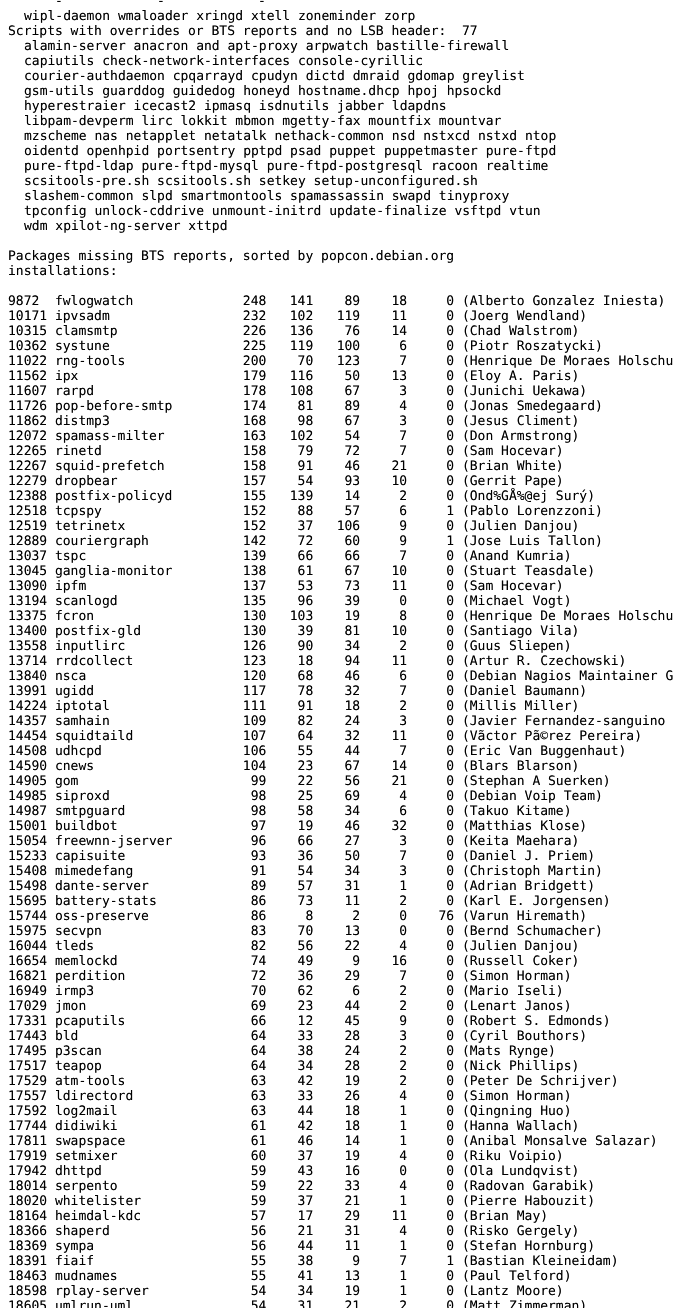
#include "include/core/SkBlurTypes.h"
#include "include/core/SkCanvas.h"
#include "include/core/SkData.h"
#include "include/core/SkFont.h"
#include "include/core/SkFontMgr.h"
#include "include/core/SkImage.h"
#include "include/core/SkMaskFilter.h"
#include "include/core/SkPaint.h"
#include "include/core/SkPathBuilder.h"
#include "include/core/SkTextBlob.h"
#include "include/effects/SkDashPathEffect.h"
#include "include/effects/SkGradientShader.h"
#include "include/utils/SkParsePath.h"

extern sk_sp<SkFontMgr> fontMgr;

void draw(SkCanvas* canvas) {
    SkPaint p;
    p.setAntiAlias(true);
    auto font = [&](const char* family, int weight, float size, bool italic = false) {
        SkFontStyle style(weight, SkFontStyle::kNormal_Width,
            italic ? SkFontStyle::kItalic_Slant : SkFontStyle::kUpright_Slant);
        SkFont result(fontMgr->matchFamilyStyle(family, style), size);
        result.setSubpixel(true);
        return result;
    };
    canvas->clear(0xFFFFFFFF);
    auto font1 = font("DejaVu Sans Mono", 400, 13);
    p.setColor(0xFF000000);
    {
        const struct { const char* s; float x, y; } items[] = {
            {"-", 55, 5},
            {"-", 157, 5},
            {"-", 258, 5},
            {"wipl-daemon wmaloader xringd xtell zoneminder zorp", 24, 20},
            {"Scripts with overrides or BTS reports and no LSB header:  77", 8, 35},
            {"alamin-server anacron and apt-proxy arpwatch bastille-firewall", 24, 50},
            {"capiutils check-network-interfaces console-cyrillic", 24, 65},
            {"courier-authdaemon cpqarrayd cpudyn dictd dmraid gdomap greylist", 24, 80},
            {"gsm-utils guarddog guidedog honeyd hostname.dhcp hpoj hpsockd", 24, 95},
            {"hyperestraier icecast2 ipmasq isdnutils jabber ldapdns", 24, 110},
            {"libpam-devperm lirc lokkit mbmon mgetty-fax mountfix mountvar", 24, 125},
            {"mzscheme nas netapplet netatalk nethack-common nsd nstxcd nstxd ntop", 24, 140},
            {"oidentd openhpid portsentry pptpd psad puppet puppetmaster pure-ftpd", 24, 155},
            {"pure-ftpd-ldap pure-ftpd-mysql pure-ftpd-postgresql racoon realtime", 24, 170},
            {"scsitools-pre.sh scsitools.sh setkey setup-unconfigured.sh", 24, 185},
            {"slashem-common slpd smartmontools spamassassin swapd tinyproxy", 24, 200},
            {"tpconfig unlock-cddrive unmount-initrd update-finalize vsftpd vtun", 24, 215},
            {"wdm xpilot-ng-server xttpd", 24, 230},
            {"Packages missing BTS reports, sorted by popcon.debian.org", 8, 260},
            {"installations:", 8, 275},
            {"9872  fwlogwatch              248   141    89    18     0 (Alberto Gonzalez Iniesta)", 8, 305},
            {"10171 ipvsadm                 232   102   119    11     0 (Joerg Wendland)", 8, 320},
            {"10315 clamsmtp                226   136    76    14     0 (Chad Walstrom)", 8, 335},
            {"10362 systune                 225   119   100     6     0 (Piotr Roszatycki)", 8, 350},
            {"11022 rng-tools               200    70   123     7     0 (Henrique De Moraes Holschu", 8, 365},
            {"11562 ipx                     179   116    50    13     0 (Eloy A. Paris)", 8, 380},
            {"11607 rarpd                   178   108    67     3     0 (Junichi Uekawa)", 8, 395},
            {"11726 pop-before-smtp         174    81    89     4     0 (Jonas Smedegaard)", 8, 410},
            {"11862 distmp3                 168    98    67     3     0 (Jesus Climent)", 8, 425},
            {"12072 spamass-milter          163   102    54     7     0 (Don Armstrong)", 8, 440},
            {"12265 rinetd                  158    79    72     7     0 (Sam Hocevar)", 8, 455},
            {"12267 squid-prefetch          158    91    46    21     0 (Brian White)", 8, 470},
            {"12279 dropbear                157    54    93    10     0 (Gerrit Pape)", 8, 485},
            {"12388 postfix-policyd         155   139    14     2     0 (Ond%GÅ%@ej Surý)", 8, 500},
            {"12518 tcpspy                  152    88    57     6     1 (Pablo Lorenzzoni)", 8, 515},
            {"12519 tetrinetx               152    37   106     9     0 (Julien Danjou)", 8, 530},
            {"12889 couriergraph            142    72    60     9     1 (Jose Luis Tallon)", 8, 545},
            {"13037 tspc                    139    66    66     7     0 (Anand Kumria)", 8, 560},
            {"13045 ganglia-monitor         138    61    67    10     0 (Stuart Teasdale)", 8, 575},
            {"13090 ipfm                    137    53    73    11     0 (Sam Hocevar)", 8, 590},
            {"13194 scanlogd                135    96    39     0     0 (Michael Vogt)", 8, 605},
            {"13375 fcron                   130   103    19     8     0 (Henrique De Moraes Holschu", 8, 620},
            {"13400 postfix-gld             130    39    81    10     0 (Santiago Vila)", 8, 635},
            {"13558 inputlirc               126    90    34     2     0 (Guus Sliepen)", 8, 650},
            {"13714 rrdcollect              123    18    94    11     0 (Artur R. Czechowski)", 8, 665},
            {"13840 nsca                    120    68    46     6     0 (Debian Nagios Maintainer G", 8, 680},
            {"13991 ugidd                   117    78    32     7     0 (Daniel Baumann)", 8, 695},
            {"14224 iptotal                 111    91    18     2     0 (Millis Miller)", 8, 710},
            {"14357 samhain                 109    82    24     3     0 (Javier Fernandez-sanguino", 8, 725},
            {"14454 squidtaild              107    64    32    11     0 (Vãctor Pã©rez Pereira)", 8, 740},
            {"14508 udhcpd                  106    55    44     7     0 (Eric Van Buggenhaut)", 8, 755},
            {"14590 cnews                   104    23    67    14     0 (Blars Blarson)", 8, 770},
            {"14905 gom                      99    22    56    21     0 (Stephan A Suerken)", 8, 785},
            {"14985 siproxd                  98    25    69     4     0 (Debian Voip Team)", 8, 800},
            {"14987 smtpguard                98    58    34     6     0 (Takuo Kitame)", 8, 815},
            {"15001 buildbot                 97    19    46    32     0 (Matthias Klose)", 8, 830},
            {"15054 freewnn-jserver          96    66    27     3     0 (Keita Maehara)", 8, 845},
            {"15233 capisuite                93    36    50     7     0 (Daniel J. Priem)", 8, 860},
            {"15408 mimedefang               91    54    34     3     0 (Christoph Martin)", 8, 875},
            {"15498 dante-server             89    57    31     1     0 (Adrian Bridgett)", 8, 890},
            {"15695 battery-stats            86    73    11     2     0 (Karl E. Jorgensen)", 8, 905},
            {"15744 oss-preserve             86     8     2     0    76 (Varun Hiremath)", 8, 920},
            {"15975 secvpn                   83    70    13     0     0 (Bernd Schumacher)", 8, 935},
            {"16044 tleds                    82    56    22     4     0 (Julien Danjou)", 8, 950},
            {"16654 memlockd                 74    49     9    16     0 (Russell Coker)", 8, 965},
            {"16821 perdition                72    36    29     7     0 (Simon Horman)", 8, 980},
            {"16949 irmp3                    70    62     6     2     0 (Mario Iseli)", 8, 995},
            {"17029 jmon                     69    23    44     2     0 (Lenart Janos)", 8, 1010},
            {"17331 pcaputils                66    12    45     9     0 (Robert S. Edmonds)", 8, 1025},
            {"17443 bld                      64    33    28     3     0 (Cyril Bouthors)", 8, 1040},
            {"17495 p3scan                   64    38    24     2     0 (Mats Rynge)", 8, 1055},
            {"17517 teapop                   64    34    28     2     0 (Nick Phillips)", 8, 1070},
            {"17529 atm-tools                63    42    19     2     0 (Peter De Schrijver)", 8, 1085},
            {"17557 ldirectord               63    33    26     4     0 (Simon Horman)", 8, 1100},
            {"17592 log2mail                 63    44    18     1     0 (Qingning Huo)", 8, 1115},
            {"17744 didiwiki                 61    42    18     1     0 (Hanna Wallach)", 8, 1130},
            {"17811 swapspace                61    46    14     1     0 (Anibal Monsalve Salazar)", 8, 1145},
            {"17919 setmixer                 60    37    19     4     0 (Riku Voipio)", 8, 1160},
            {"17942 dhttpd                   59    43    16     0     0 (Ola Lundqvist)", 8, 1175},
            {"18014 serpento                 59    22    33     4     0 (Radovan Garabik)", 8, 1190},
            {"18020 whitelister              59    37    21     1     0 (Pierre Habouzit)", 8, 1205},
            {"18164 heimdal-kdc              57    17    29    11     0 (Brian May)", 8, 1220},
            {"18366 shaperd                  56    21    31     4     0 (Risko Gergely)", 8, 1235},
            {"18369 sympa                    56    44    11     1     0 (Stefan Hornburg)", 8, 1250},
            {"18391 fiaif                    55    38     9     7     1 (Bastian Kleineidam)", 8, 1265},
            {"18463 mudnames                 55    41    13     1     0 (Paul Telford)", 8, 1280},
            {"18598 rplay-server             54    34    19     1     0 (Lantz Moore)", 8, 1295},
            {"18605 umlrun-uml               54    31    21     2     0 (Matt Zimmerman)", 8, 1310},
        };
        for (auto [s, x, y] : items) {
            canvas->drawString(s, x, y, font1, p);
        }
    }
}
